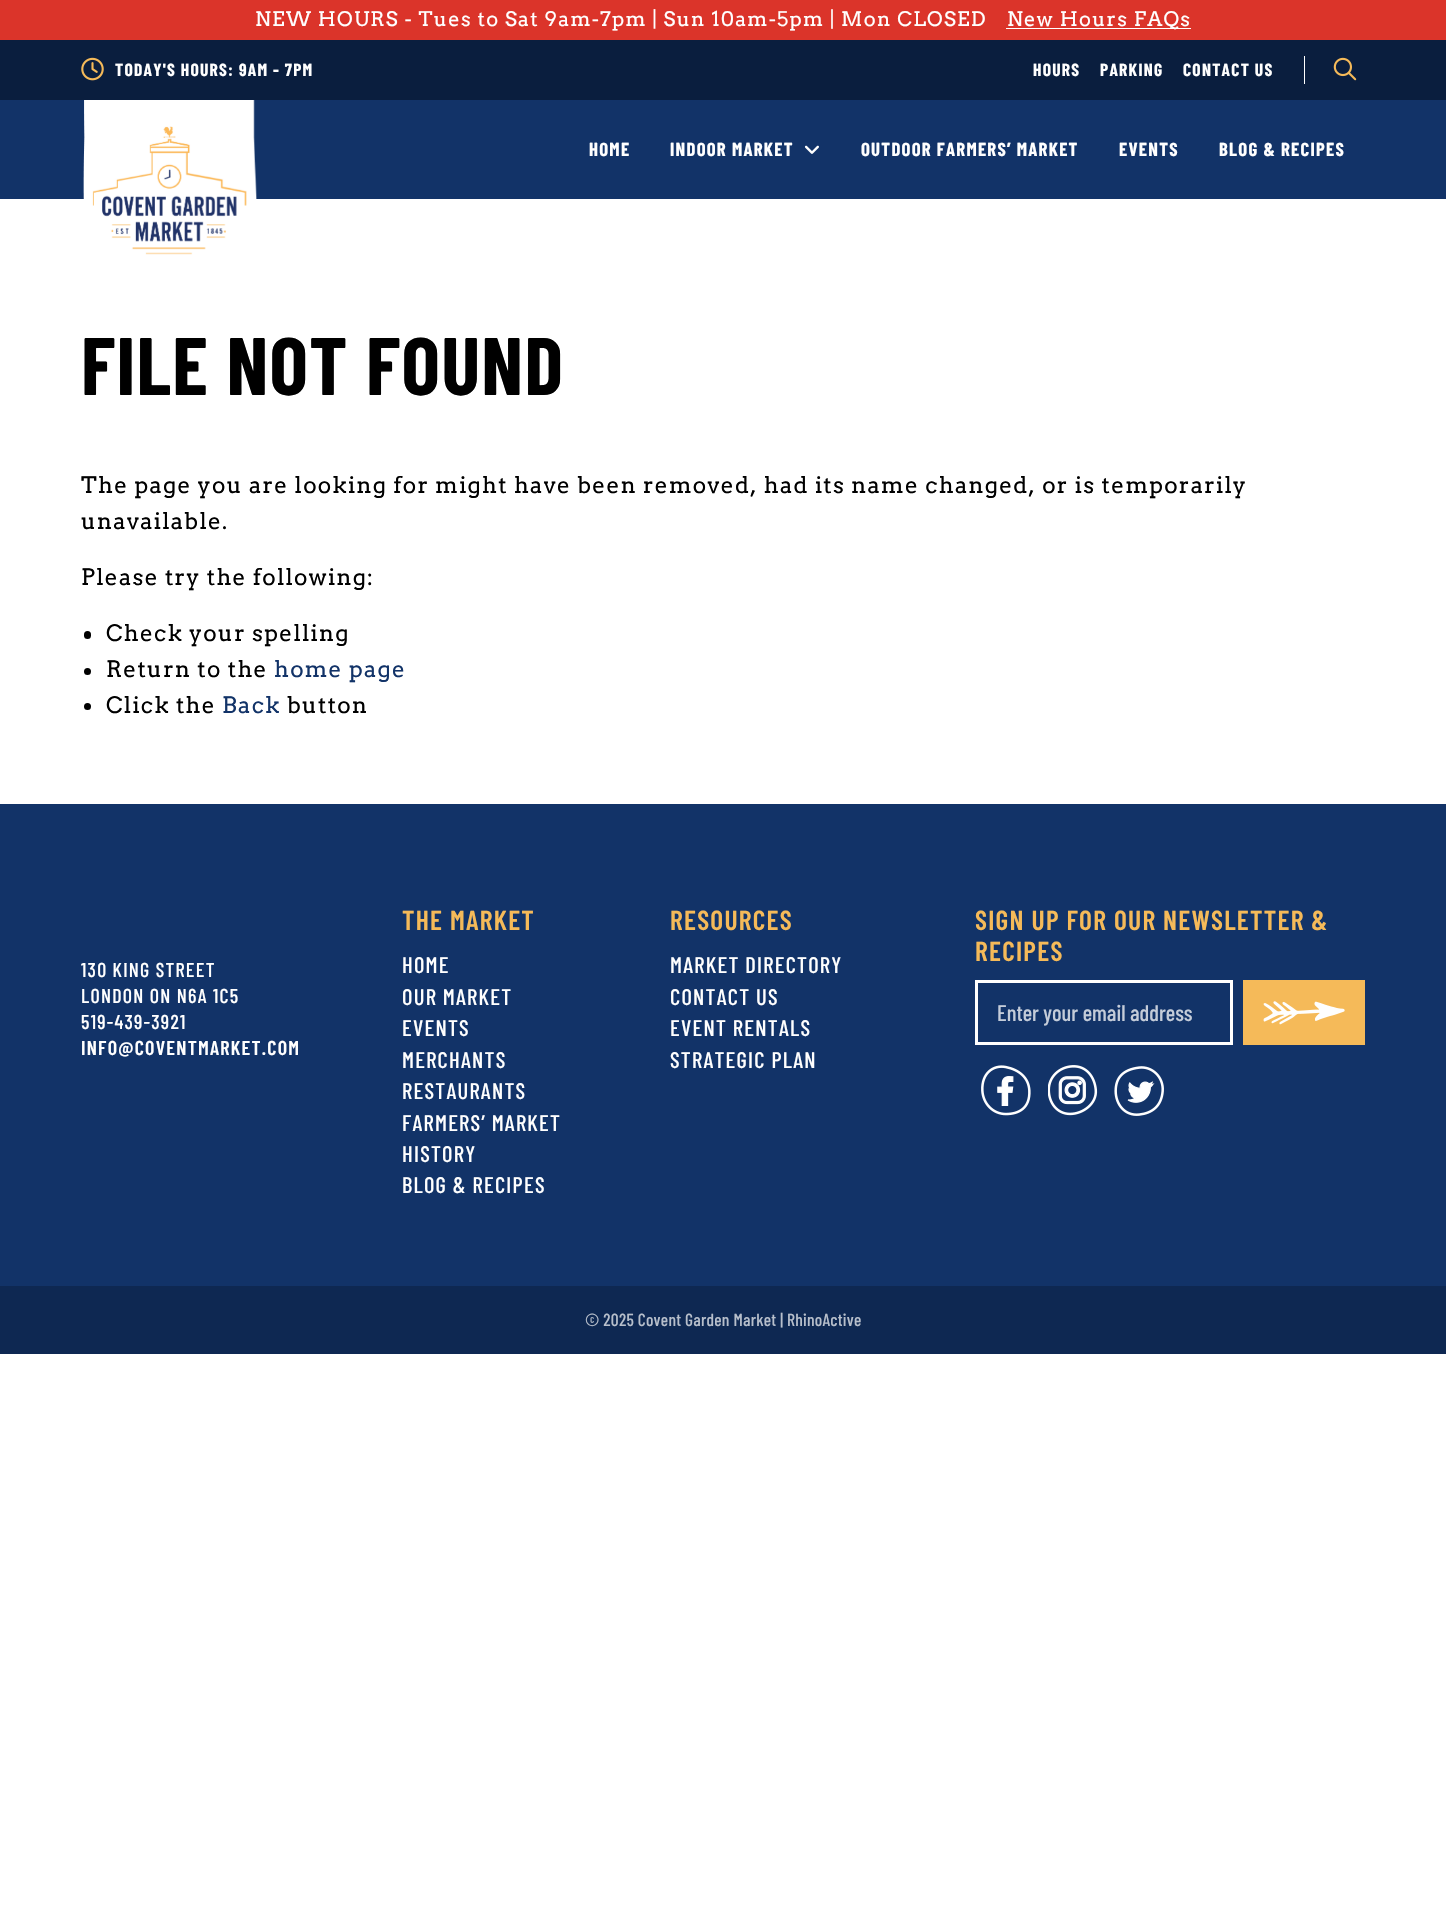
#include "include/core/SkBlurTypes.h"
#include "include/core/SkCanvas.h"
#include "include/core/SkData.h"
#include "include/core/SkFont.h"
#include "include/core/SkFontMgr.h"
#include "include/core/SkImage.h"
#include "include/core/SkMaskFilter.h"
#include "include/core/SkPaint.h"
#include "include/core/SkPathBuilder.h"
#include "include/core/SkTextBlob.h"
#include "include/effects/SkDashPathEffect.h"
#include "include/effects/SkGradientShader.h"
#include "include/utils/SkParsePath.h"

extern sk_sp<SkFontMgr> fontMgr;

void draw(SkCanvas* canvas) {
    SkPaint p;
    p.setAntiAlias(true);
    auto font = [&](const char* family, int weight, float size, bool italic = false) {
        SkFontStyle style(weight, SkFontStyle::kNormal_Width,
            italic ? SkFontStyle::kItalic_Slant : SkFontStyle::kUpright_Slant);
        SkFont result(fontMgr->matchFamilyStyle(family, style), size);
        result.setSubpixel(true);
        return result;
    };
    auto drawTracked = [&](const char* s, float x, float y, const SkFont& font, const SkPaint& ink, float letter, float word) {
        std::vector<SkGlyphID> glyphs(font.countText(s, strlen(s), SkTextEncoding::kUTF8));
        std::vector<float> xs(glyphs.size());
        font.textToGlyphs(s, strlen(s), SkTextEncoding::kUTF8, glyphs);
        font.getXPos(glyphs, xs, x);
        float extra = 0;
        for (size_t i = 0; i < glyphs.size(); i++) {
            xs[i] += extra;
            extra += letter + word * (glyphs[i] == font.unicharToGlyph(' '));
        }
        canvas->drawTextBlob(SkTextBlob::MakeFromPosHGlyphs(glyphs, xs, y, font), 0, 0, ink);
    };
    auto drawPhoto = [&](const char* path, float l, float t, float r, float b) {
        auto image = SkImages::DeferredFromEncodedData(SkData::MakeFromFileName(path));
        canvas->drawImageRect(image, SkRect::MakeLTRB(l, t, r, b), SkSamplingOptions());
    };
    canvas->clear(0xFFFFFFFF);
    p.setColor(0xFFDB342A);
    canvas->drawRect(SkRect::MakeLTRB(0, 0, 1446, 40), p);
    auto font1 = font("Arvo", 400, 20);
    p.setColor(0xFFFFFFFF);
    drawTracked("NEW HOURS - Tues to Sat 9am-7pm | Sun 10am-5pm | Mon CLOSED", 255, 26, font1, p, 1.25f, 0);
    canvas->drawRect(SkRect::MakeLTRB(1006, 28, 1191, 29), p);
    drawTracked("New Hours FAQs", 1007, 26, font1, p, 1.25f, 0);
    p.setColor(0xFF123368);
    canvas->drawRect(SkRect::MakeLTRB(0, 100, 1446, 199), p);
    p.setColor(0xFF0A1E3E);
    canvas->drawRect(SkRect::MakeLTRB(0, 40, 1446, 100), p);
    drawPhoto("media/1.png", 81, 57, 104, 81);
    auto font2 = font("Barlow Condensed", 700, 17.5f);
    p.setColor(0xFFFFFFFF);
    drawTracked("TODAY'S HOURS: 9AM - 7PM", 115, 76, font2, p, 1.25f, 0);
    canvas->drawRect(SkRect::MakeLTRB(1304, 56, 1305, 84), p);
    {
        const struct { const char* s; float x, y; } items[] = {
            {"HOURS", 1033, 76},
            {"PARKING", 1100, 76},
            {"CONTACT US", 1183, 76},
        };
        for (auto [s, x, y] : items) {
            drawTracked(s, x, y, font2, p, 1.25f, 0);
        }
    }
    drawPhoto("media/2.png", 1333, 57, 1357, 81);
    drawPhoto("media/3.png", 83, 100, 257, 255);
    auto font3 = font("Barlow Condensed", 700, 18.75f);
    drawTracked("HOME", 589, 156, font3, p, 1.25f, 0);
    drawTracked("INDOOR MARKET", 670, 156, font3, p, 1.25f, 0);
    drawPhoto("media/4.png", 804, 145, 819, 154);
    {
        const struct { const char* s; float x, y; } items[] = {
            {"OUTDOOR FARMERS’ MARKET", 861, 156},
            {"EVENTS", 1119, 156},
            {"BLOG & RECIPES", 1219, 156},
        };
        for (auto [s, x, y] : items) {
            drawTracked(s, x, y, font3, p, 1.25f, 0);
        }
    }
    auto font4 = font("Barlow Condensed", 700, 81.25f);
    p.setColor(0xFF000000);
    drawTracked("FILE NOT FOUND", 81, 395, font4, p, 1.25f, 0);
    auto font5 = font("Arvo", 400, 22.5f);
    {
        const struct { const char* s; float x, y; } items[] = {
            {"The page you are looking for might have been removed, had its name changed, or is temporarily", 81, 493},
            {"unavailable.", 81, 529},
            {"Please try the following:", 81, 585},
        };
        for (auto [s, x, y] : items) {
            drawTracked(s, x, y, font5, p, 1.25f, 0);
        }
    }
    canvas->drawRoundRect(SkRect::MakeLTRB(84, 631, 91, 639), 3.5f, 3.5f, p);
    drawTracked("Check your spelling", 106, 641, font5, p, 1.25f, 0);
    canvas->drawCircle(87.5f, 671.5f, 3.5f, p);
    drawTracked("Return to the", 106, 677, font5, p, 1.25f, 0);
    p.setColor(0xFF123368);
    drawTracked("home page", 274, 677, font5, p, 1.25f, 0);
    p.setColor(0xFF000000);
    canvas->drawCircle(87.5f, 706.5f, 3.5f, p);
    drawTracked("Click the", 106, 713, font5, p, 1.25f, 0);
    p.setColor(0xFF123368);
    drawTracked("Back", 222, 713, font5, p, 1.25f, 0);
    p.setColor(0xFF000000);
    drawTracked("button", 287, 713, font5, p, 1.25f, 0);
    p.setColor(0xFF123368);
    canvas->drawRect(SkRect::MakeLTRB(0, 804, 1446, 1286), p);
    auto font6 = font("Barlow Condensed", 500, 20);
    p.setColor(0xFFFFFFFF);
    {
        const struct { const char* s; float x, y; } items[] = {
            {"130 KING STREET", 81, 977},
            {"LONDON ON N6A 1C5", 81, 1003},
            {"519-439-3921", 81, 1029},
        };
        for (auto [s, x, y] : items) {
            drawTracked(s, x, y, font6, p, 1.25f, 0);
        }
    }
    auto font7 = font("Barlow Condensed", 600, 20);
    drawTracked("INFO@COVENTMARKET.COM", 81, 1055, font7, p, 1.25f, 0);
    auto font8 = font("Barlow Condensed", 600, 27.5f);
    p.setColor(0xFFF5BA59);
    drawTracked("THE MARKET", 402, 930, font8, p, 1.25f, 0);
    auto font9 = font("Barlow Condensed", 500, 22.5f);
    p.setColor(0xFFFFFFFF);
    {
        const struct { const char* s; float x, y; } items[] = {
            {"HOME", 402, 973},
            {"OUR MARKET", 402, 1005},
            {"EVENTS", 402, 1036},
            {"MERCHANTS", 402, 1068},
            {"RESTAURANTS", 402, 1099},
            {"FARMERS’ MARKET", 402, 1131},
            {"HISTORY", 402, 1162},
            {"BLOG & RECIPES", 402, 1193},
        };
        for (auto [s, x, y] : items) {
            drawTracked(s, x, y, font9, p, 1.25f, 0);
        }
    }
    p.setColor(0xFFF5BA59);
    drawTracked("RESOURCES", 670, 930, font8, p, 1.25f, 0);
    p.setColor(0xFFFFFFFF);
    {
        const struct { const char* s; float x, y; } items[] = {
            {"MARKET DIRECTORY", 670, 973},
            {"CONTACT US", 670, 1005},
            {"EVENT RENTALS", 670, 1036},
            {"STRATEGIC PLAN", 670, 1068},
        };
        for (auto [s, x, y] : items) {
            drawTracked(s, x, y, font9, p, 1.25f, 0);
        }
    }
    p.setColor(0xFFF5BA59);
    drawTracked("SIGN UP FOR OUR NEWSLETTER &", 975, 930, font8, p, 1.25f, 0);
    drawTracked("RECIPES", 975, 961, font8, p, 1.25f, 0);
    p.setStyle(SkPaint::kStroke_Style);
    p.setStrokeWidth(3);
    p.setColor(0xFFFFFFFF);
    canvas->drawRect(SkRect::MakeLTRB(976.5f, 981.5f, 1231.5f, 1043.5f), p);
    p.setStyle(SkPaint::kFill_Style);
    p.setColor(0xFFC4CCD9);
    canvas->drawString("Enter your email address", 997, 1021, font9, p);
    p.setColor(0xFFF5BA59);
    canvas->drawRect(SkRect::MakeLTRB(1243, 980, 1365, 1045), p);
    drawPhoto("media/5.png", 1263, 1001, 1345, 1025);
    drawPhoto("media/6.png", 981, 1065, 1031, 1116);
    drawPhoto("media/7.png", 1048, 1065, 1098, 1116);
    drawPhoto("media/8.png", 1114, 1066, 1164, 1116);
    p.setColor(0xFF0E2852);
    canvas->drawRect(SkRect::MakeLTRB(0, 1286, 1446, 1354), p);
    auto font10 = font("Barlow Condensed", 500, 17.5f);
    p.setColor(0xFFB7BFCB);
    drawTracked("© 2025 Covent Garden Market | RhinoActive", 585, 1326, font10, p, 0.25f, 0);
}
